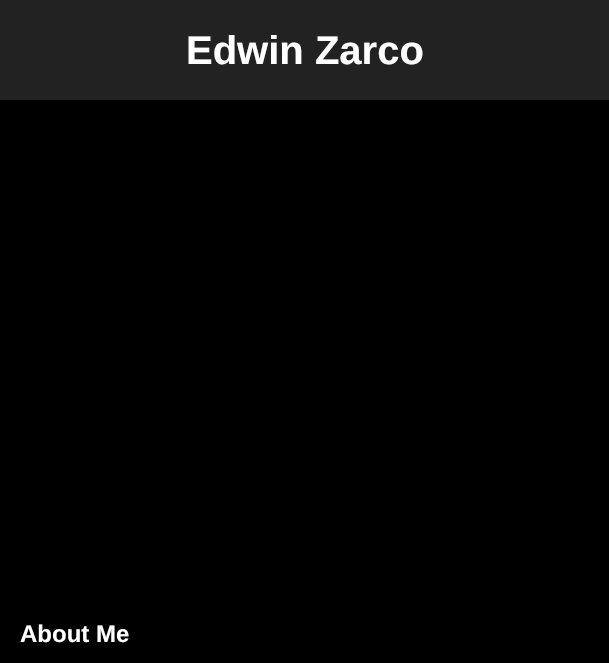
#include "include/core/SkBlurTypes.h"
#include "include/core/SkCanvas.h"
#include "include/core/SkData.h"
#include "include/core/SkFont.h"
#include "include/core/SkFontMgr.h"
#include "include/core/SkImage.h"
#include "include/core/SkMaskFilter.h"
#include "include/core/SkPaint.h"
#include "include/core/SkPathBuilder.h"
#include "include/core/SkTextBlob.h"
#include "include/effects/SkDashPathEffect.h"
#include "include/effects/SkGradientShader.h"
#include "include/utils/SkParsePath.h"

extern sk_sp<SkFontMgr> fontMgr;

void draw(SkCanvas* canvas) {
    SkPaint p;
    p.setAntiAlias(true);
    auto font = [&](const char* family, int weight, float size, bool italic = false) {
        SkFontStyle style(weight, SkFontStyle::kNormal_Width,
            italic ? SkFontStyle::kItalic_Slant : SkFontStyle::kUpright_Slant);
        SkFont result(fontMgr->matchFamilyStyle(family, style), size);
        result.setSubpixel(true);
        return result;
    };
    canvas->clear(0xFF000000);
    p.setColor(0xFF222222);
    canvas->drawRect(SkRect::MakeLTRB(0, 0, 609, 100), p);
    auto font1 = font("Liberation Sans", 700, 40);
    p.setColor(0xFFFFFFFF);
    canvas->drawString("Edwin Zarco", 186, 64, font1, p);
    auto font2 = font("Liberation Sans", 700, 24);
    canvas->drawString("About Me", 20, 642, font2, p);
}
